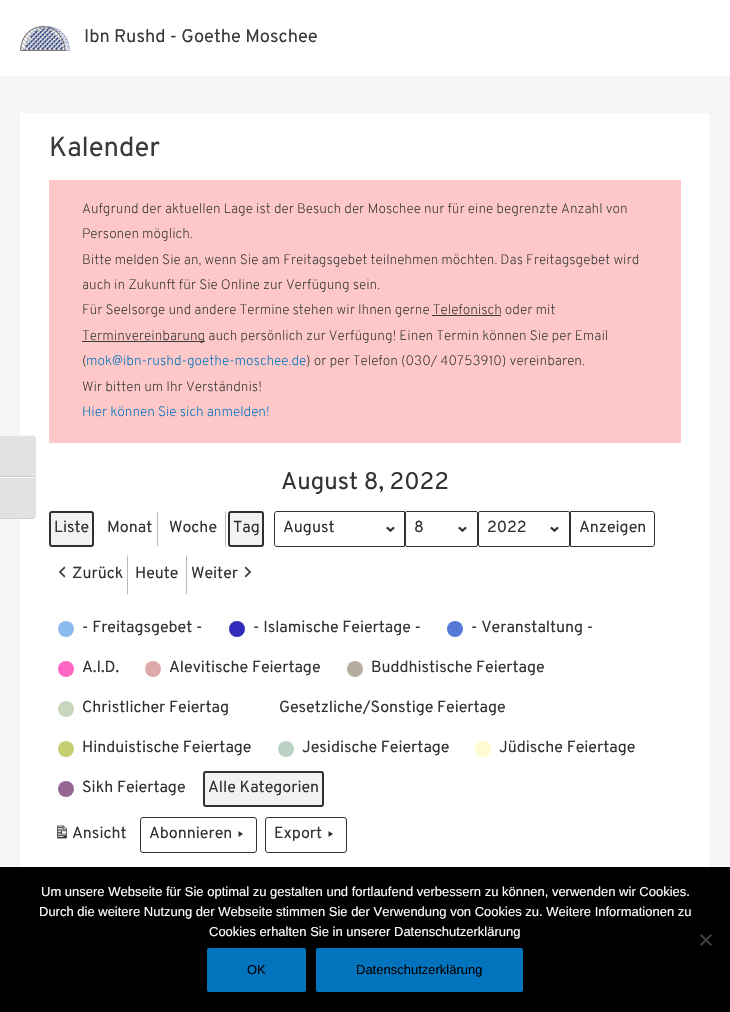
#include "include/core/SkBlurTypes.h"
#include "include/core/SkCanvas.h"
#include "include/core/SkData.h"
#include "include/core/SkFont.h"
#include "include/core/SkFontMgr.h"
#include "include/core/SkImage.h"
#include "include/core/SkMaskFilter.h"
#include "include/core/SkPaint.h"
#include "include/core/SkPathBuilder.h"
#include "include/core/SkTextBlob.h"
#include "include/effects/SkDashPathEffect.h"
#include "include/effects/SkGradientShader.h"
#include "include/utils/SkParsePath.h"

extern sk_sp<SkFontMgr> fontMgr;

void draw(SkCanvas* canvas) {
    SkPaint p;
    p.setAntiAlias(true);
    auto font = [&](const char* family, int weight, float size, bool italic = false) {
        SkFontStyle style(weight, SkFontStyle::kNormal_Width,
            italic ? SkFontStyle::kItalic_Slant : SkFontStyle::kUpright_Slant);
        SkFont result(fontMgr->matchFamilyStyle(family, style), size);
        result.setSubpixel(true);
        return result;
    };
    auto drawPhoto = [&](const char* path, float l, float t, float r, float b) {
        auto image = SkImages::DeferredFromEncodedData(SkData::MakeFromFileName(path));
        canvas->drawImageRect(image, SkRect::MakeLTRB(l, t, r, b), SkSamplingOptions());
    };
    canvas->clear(0xFFF5F5F5);
    p.setColor(0xFFFFFFFF);
    canvas->drawRect(SkRect::MakeLTRB(20, 113, 710, 867), p);
    p.setColor(0xFFE2E2E2);
    canvas->drawPath(SkPathBuilder().moveTo(0, 435).lineTo(32, 435).cubicTo(34, 435, 36, 437, 36, 439).lineTo(36, 477).lineTo(0, 477).close().detach(), p);
    p.setColor(0xFFF5F5F5);
    canvas->drawPath(SkPathBuilder().moveTo(0, 435).lineTo(0, 436).lineTo(32, 436).cubicTo(34, 436, 36, 437, 36, 439).cubicTo(36, 437, 34, 435, 32, 435).close().detach(), p);
    p.setColor(0xFFD2D2D2);
    canvas->drawRect(SkRect::MakeLTRB(0, 476, 36, 477), p);
    p.setColor(0xFFE2E2E2);
    canvas->drawPath(SkPathBuilder().moveTo(0, 477).lineTo(36, 477).lineTo(36, 515).cubicTo(36, 517, 34, 519, 32, 519).lineTo(0, 519).close().detach(), p);
    p.setColor(0xFFF5F5F5);
    canvas->drawRect(SkRect::MakeLTRB(0, 477, 36, 478), p);
    p.setColor(0xFFD2D2D2);
    canvas->drawPath(SkPathBuilder().moveTo(0, 518).lineTo(0, 519).lineTo(32, 519).cubicTo(34, 519, 36, 517, 36, 515).cubicTo(36, 517, 34, 518, 32, 518).close().detach(), p);
    p.setColor(0xFFFFFFFF);
    canvas->drawRect(SkRect::MakeLTRB(0, 0, 730, 76), p);
    drawPhoto("media/1.png", 20, 25, 70, 51);
    auto font1 = font("Overpass", 400, 18.25f);
    p.setColor(0xFF3A3A3A);
    canvas->drawString("Ibn Rushd - Goethe Moschee", 84, 42, font1, p);
    auto font2 = font("Overpass", 400, 27.5f);
    canvas->drawString("Kalender", 49, 156, font2, p);
    p.setColor(0xFFFFC8C8);
    canvas->drawRect(SkRect::MakeLTRB(49, 180, 681, 443), p);
    auto font3 = font("Overpass", 200, 13.7f);
    p.setColor(0xFF3A3A3A);
    {
        const struct { const char* s; float x, y; } items[] = {
            {"Aufgrund der aktuellen Lage ist der Besuch der Moschee nur für eine begrenzte Anzahl von", 82, 213},
            {"Personen möglich.", 82, 238},
            {"Bitte melden Sie an, wenn Sie am Freitagsgebet teilnehmen möchten. Das Freitagsgebet wird", 82, 264},
            {"auch in Zukunft für Sie Online zur Verfügung sein.", 82, 289},
            {"Für Seelsorge und andere Termine stehen wir Ihnen gerne Telefonisch oder mit", 82, 314},
        };
        for (auto [s, x, y] : items) {
            canvas->drawString(s, x, y, font3, p);
        }
    }
    canvas->drawRect(SkRect::MakeLTRB(432, 315, 501, 316), p);
    canvas->drawRect(SkRect::MakeLTRB(82, 341, 205, 342), p);
    canvas->drawString("Terminvereinbarung auch persönlich zur Verfügung! Einen Termin können Sie per Email", 82, 340, font3, p);
    canvas->drawString("(", 82, 365, font3, p);
    p.setColor(0xFF0274BE);
    canvas->drawString("mok@ibn-rushd-goethe-moschee.de", 86, 365, font3, p);
    p.setColor(0xFF3A3A3A);
    canvas->drawString(") or per Telefon (030/ 40753910) vereinbaren.", 306, 365, font3, p);
    canvas->drawString("Wir bitten um Ihr Verständnis!", 82, 391, font3, p);
    p.setColor(0xFF0274BE);
    canvas->drawString("Hier können Sie sich anmelden!", 82, 416, font3, p);
    auto font4 = font("Overpass", 400, 24);
    p.setColor(0xFF313233);
    canvas->drawString("August 8, 2022", 281, 489, font4, p);
    p.setColor(0xFFF2F2F2);
    canvas->drawRoundRect(SkRect::MakeLTRB(49, 511, 94, 547), 3, 3, p);
    p.setStyle(SkPaint::kStroke_Style);
    p.setStrokeWidth(2);
    p.setColor(0xFF2F3030);
    canvas->drawRoundRect(SkRect::MakeLTRB(50, 512, 93, 546), 2, 2, p);
    auto font5 = font("Overpass", 400, 16);
    p.setStyle(SkPaint::kFill_Style);
    p.setColor(0xFF313233);
    canvas->drawString("Liste", 54, 532, font5, p);
    p.setColor(0xFFBBBBBB);
    canvas->drawPath(SkPathBuilder().moveTo(158, 511).lineTo(157, 512).lineTo(157, 546).lineTo(158, 547).close().detach(), p);
    p.setColor(0xFF313233);
    canvas->drawString("Monat", 107, 532, font5, p);
    p.setColor(0xFFBBBBBB);
    canvas->drawPath(SkPathBuilder().moveTo(226, 511).lineTo(226, 547).lineTo(225, 546).lineTo(225, 512).close().detach(), p);
    p.setColor(0xFF313233);
    canvas->drawString("Woche", 169, 532, font5, p);
    p.setColor(0xFFF2F2F2);
    canvas->drawRoundRect(SkRect::MakeLTRB(228, 511, 264, 547), 3, 3, p);
    p.setStyle(SkPaint::kStroke_Style);
    p.setColor(0xFF2F3030);
    canvas->drawRoundRect(SkRect::MakeLTRB(229, 512, 263, 546), 2, 2, p);
    p.setStyle(SkPaint::kFill_Style);
    p.setColor(0xFF313233);
    canvas->drawString("Tag", 233, 532, font5, p);
    drawPhoto("media/2.png", 386, 526, 395, 533);
    p.setStyle(SkPaint::kStroke_Style);
    p.setStrokeWidth(1);
    canvas->drawPath(SkPathBuilder().moveTo(277, 511.5f).lineTo(404.5f, 511.5f).lineTo(404.5f, 546.5f).lineTo(277, 546.5f).cubicTo(275.5f, 546.5f, 274.5f, 545.5f, 274.5f, 544).lineTo(274.5f, 514).cubicTo(274.5f, 512.5f, 275.5f, 511.5f, 277, 511.5f).close().detach(), p);
    p.setStyle(SkPaint::kFill_Style);
    canvas->drawString("August", 283, 532, font5, p);
    drawPhoto("media/2.png", 458, 526, 467, 533);
    p.setStyle(SkPaint::kStroke_Style);
    canvas->drawRoundRect(SkRect::MakeLTRB(405.5f, 511.5f, 477.5f, 546.5f), 1.5f, 1.5f, p);
    p.setStyle(SkPaint::kFill_Style);
    canvas->drawString("8", 414, 532, font5, p);
    drawPhoto("media/2.png", 550, 526, 559, 533);
    p.setStyle(SkPaint::kStroke_Style);
    canvas->drawRoundRect(SkRect::MakeLTRB(478.5f, 511.5f, 569.5f, 546.5f), 1.5f, 1.5f, p);
    p.setStyle(SkPaint::kFill_Style);
    canvas->drawString("2022", 487, 532, font5, p);
    p.setStyle(SkPaint::kStroke_Style);
    canvas->drawPath(SkPathBuilder().moveTo(570.5f, 511.5f).lineTo(652, 511.5f).cubicTo(653.5f, 511.5f, 654.5f, 512.5f, 654.5f, 514).lineTo(654.5f, 544).cubicTo(654.5f, 545.5f, 653.5f, 546.5f, 652, 546.5f).lineTo(570.5f, 546.5f).close().detach(), p);
    p.setStyle(SkPaint::kFill_Style);
    canvas->drawString("Anzeigen", 579, 532, font5, p);
    p.setColor(0xFFBBBBBB);
    canvas->drawPath(SkPathBuilder().moveTo(128, 555).lineTo(127, 556).lineTo(127, 594).lineTo(128, 595).close().detach(), p);
    drawPhoto("media/3.png", 59, 566, 66, 578);
    p.setColor(0xFF313233);
    canvas->drawString("Zurück", 72, 578, font5, p);
    canvas->drawString("Heute", 135, 578, font5, p);
    p.setColor(0xFFBBBBBB);
    canvas->drawPath(SkPathBuilder().moveTo(186, 555).lineTo(186, 595).lineTo(187, 594).lineTo(187, 556).close().detach(), p);
    p.setColor(0xFF313233);
    canvas->drawString("Weiter", 191, 578, font5, p);
    drawPhoto("media/4.png", 244, 566, 251, 578);
    p.setColor(0xFF8BBCED);
    canvas->drawCircle(66, 629, 8, p);
    p.setColor(0xFF313233);
    canvas->drawString("- Freitagsgebet -", 82, 632, font5, p);
    p.setColor(0xFF332CBA);
    canvas->drawCircle(237, 629, 8, p);
    p.setColor(0xFF313233);
    canvas->drawString("- Islamische Feiertage -", 253, 632, font5, p);
    p.setColor(0xFF5679D8);
    canvas->drawCircle(455, 629, 8, p);
    p.setColor(0xFF313233);
    canvas->drawString("- Veranstaltung -", 471, 632, font5, p);
    p.setColor(0xFFFF66C4);
    canvas->drawCircle(66, 669, 8, p);
    p.setColor(0xFF313233);
    canvas->drawString("A.I.D.", 82, 672, font5, p);
    p.setColor(0xFFDDA8A8);
    canvas->drawCircle(153, 669, 8, p);
    p.setColor(0xFF313233);
    canvas->drawString("Alevitische Feiertage", 169, 672, font5, p);
    p.setColor(0xFFB7AD9F);
    canvas->drawCircle(355, 669, 8, p);
    p.setColor(0xFF313233);
    canvas->drawString("Buddhistische Feiertage", 371, 672, font5, p);
    p.setColor(0xFFC8D6BE);
    canvas->drawCircle(66, 709, 8, p);
    p.setColor(0xFF313233);
    canvas->drawString("Christlicher Feiertag", 82, 712, font5, p);
    canvas->drawString("Gesetzliche/Sonstige Feiertage", 279, 712, font5, p);
    p.setColor(0xFFC5CE71);
    canvas->drawCircle(66, 749, 8, p);
    p.setColor(0xFF313233);
    canvas->drawString("Hinduistische Feiertage", 82, 752, font5, p);
    p.setColor(0xFFBAD1C3);
    canvas->drawCircle(286, 749, 8, p);
    p.setColor(0xFF313233);
    canvas->drawString("Jesidische Feiertage", 302, 752, font5, p);
    p.setColor(0xFFFFFBD1);
    canvas->drawCircle(483, 749, 8, p);
    p.setColor(0xFF313233);
    canvas->drawString("Jüdische Feiertage", 499, 752, font5, p);
    p.setColor(0xFF966692);
    canvas->drawCircle(66, 789, 8, p);
    p.setColor(0xFF313233);
    canvas->drawString("Sikh Feiertage", 82, 792, font5, p);
    p.setColor(0xFFF2F2F2);
    canvas->drawRoundRect(SkRect::MakeLTRB(203, 771, 324, 807), 3, 3, p);
    p.setStyle(SkPaint::kStroke_Style);
    p.setStrokeWidth(2);
    p.setColor(0xFF2F3030);
    canvas->drawRoundRect(SkRect::MakeLTRB(204, 772, 323, 806), 2, 2, p);
    p.setStyle(SkPaint::kFill_Style);
    p.setColor(0xFF313233);
    canvas->drawString("Alle Kategorien", 208, 792, font5, p);
    drawPhoto("media/5.png", 57, 825, 67, 839);
    canvas->drawString("Ansicht", 72, 838, font5, p);
    p.setStyle(SkPaint::kStroke_Style);
    p.setStrokeWidth(1);
    canvas->drawRoundRect(SkRect::MakeLTRB(140.5f, 817.5f, 256.5f, 852.5f), 2.5f, 2.5f, p);
    p.setStyle(SkPaint::kFill_Style);
    canvas->drawString("Abonnieren", 149, 838, font5, p);
    canvas->drawPath(SkPathBuilder().moveTo(238.5f, 831).lineTo(243, 834).lineTo(238.5f, 837).close().detach(), p);
    p.setStyle(SkPaint::kStroke_Style);
    canvas->drawRoundRect(SkRect::MakeLTRB(265.5f, 817.5f, 346.5f, 852.5f), 2.5f, 2.5f, p);
    p.setStyle(SkPaint::kFill_Style);
    canvas->drawString("Export", 274, 838, font5, p);
    canvas->drawPath(SkPathBuilder().moveTo(328.5f, 831).lineTo(333, 834).lineTo(328.5f, 837).close().detach(), p);
    p.setColor(0xFF000000);
    canvas->drawRect(SkRect::MakeLTRB(0, 867, 730, 1012), p);
    auto font6 = font("Liberation Sans", 400, 13);
    p.setColor(0xFFFFFFFF);
    {
        const struct { const char* s; float x, y; } items[] = {
            {"Um unsere Webseite für Sie optimal zu gestalten und fortlaufend verbessern zu können, verwenden wir Cookies.", 41, 896},
            {"Durch die weitere Nutzung der Webseite stimmen Sie der Verwendung von Cookies zu. Weitere Informationen zu", 39, 916},
            {"Cookies erhalten Sie in unserer Datenschutzerklärung", 209, 936},
        };
        for (auto [s, x, y] : items) {
            canvas->drawString(s, x, y, font6, p);
        }
    }
    p.setColor(0xFF404040);
    canvas->drawPath(SkPathBuilder().moveTo(710.5f, 934).lineTo(712, 935.5f).lineTo(701.5f, 946).lineTo(700, 944.5f).close().detach(), p);
    canvas->drawPath(SkPathBuilder().moveTo(700, 935.5f).lineTo(701.5f, 934).lineTo(712, 944.5f).lineTo(710.5f, 946).close().detach(), p);
    p.setColor(0xFF0274BE);
    canvas->drawRoundRect(SkRect::MakeLTRB(207, 948, 306, 992), 2, 2, p);
    p.setColor(0xFF000000);
    canvas->drawString("OK", 247, 974, font6, p);
    p.setColor(0xFF0274BE);
    canvas->drawRoundRect(SkRect::MakeLTRB(316, 948, 523, 992), 2, 2, p);
    p.setColor(0xFF000000);
    canvas->drawString("Datenschutzerklärung", 356, 974, font6, p);
}
